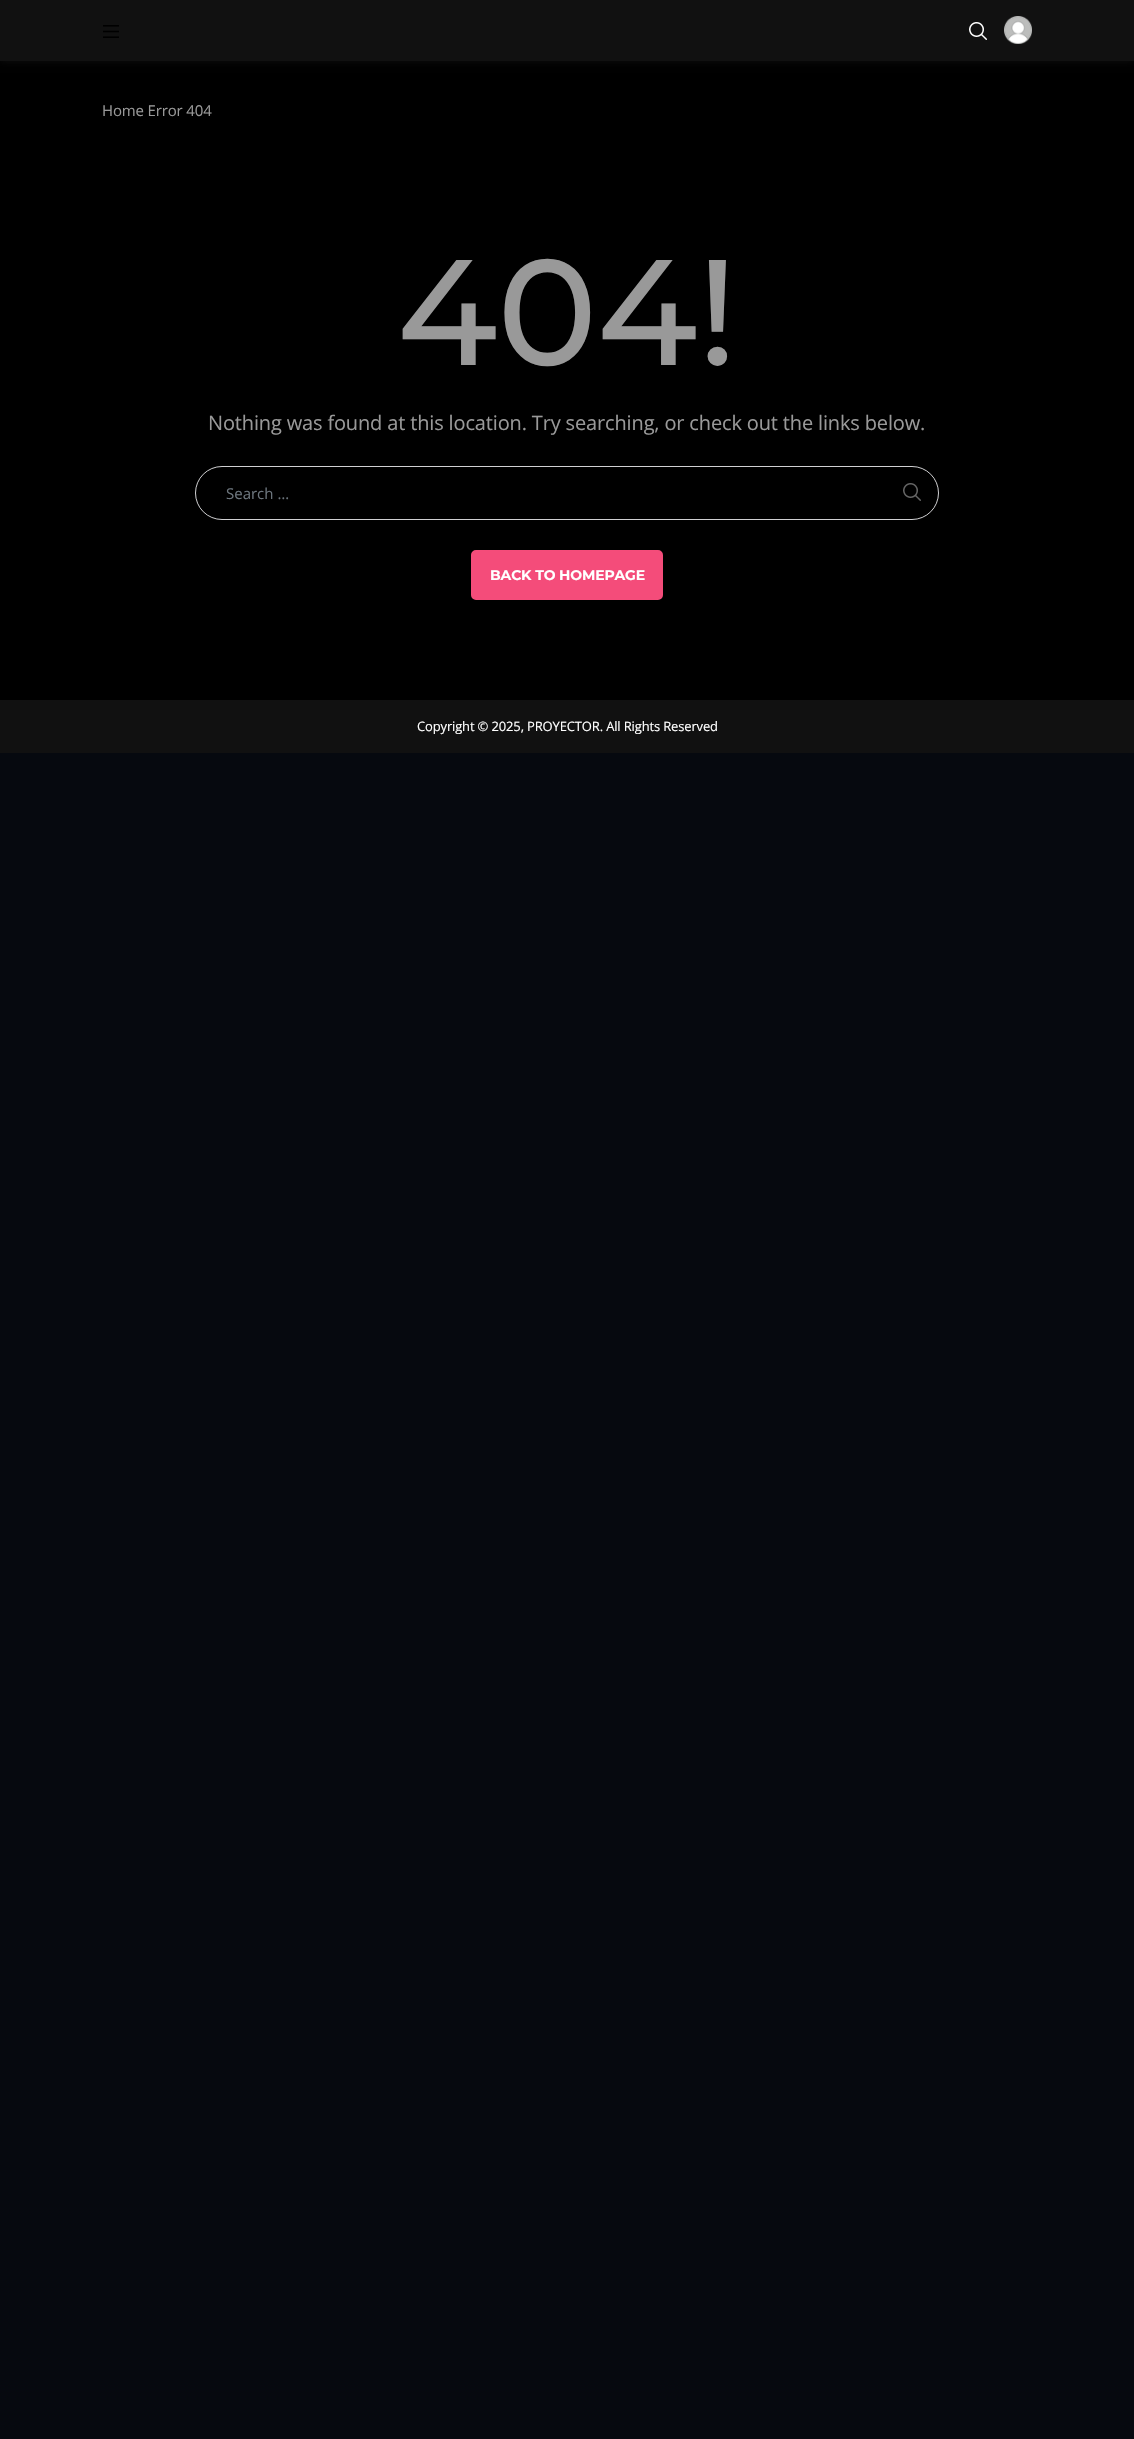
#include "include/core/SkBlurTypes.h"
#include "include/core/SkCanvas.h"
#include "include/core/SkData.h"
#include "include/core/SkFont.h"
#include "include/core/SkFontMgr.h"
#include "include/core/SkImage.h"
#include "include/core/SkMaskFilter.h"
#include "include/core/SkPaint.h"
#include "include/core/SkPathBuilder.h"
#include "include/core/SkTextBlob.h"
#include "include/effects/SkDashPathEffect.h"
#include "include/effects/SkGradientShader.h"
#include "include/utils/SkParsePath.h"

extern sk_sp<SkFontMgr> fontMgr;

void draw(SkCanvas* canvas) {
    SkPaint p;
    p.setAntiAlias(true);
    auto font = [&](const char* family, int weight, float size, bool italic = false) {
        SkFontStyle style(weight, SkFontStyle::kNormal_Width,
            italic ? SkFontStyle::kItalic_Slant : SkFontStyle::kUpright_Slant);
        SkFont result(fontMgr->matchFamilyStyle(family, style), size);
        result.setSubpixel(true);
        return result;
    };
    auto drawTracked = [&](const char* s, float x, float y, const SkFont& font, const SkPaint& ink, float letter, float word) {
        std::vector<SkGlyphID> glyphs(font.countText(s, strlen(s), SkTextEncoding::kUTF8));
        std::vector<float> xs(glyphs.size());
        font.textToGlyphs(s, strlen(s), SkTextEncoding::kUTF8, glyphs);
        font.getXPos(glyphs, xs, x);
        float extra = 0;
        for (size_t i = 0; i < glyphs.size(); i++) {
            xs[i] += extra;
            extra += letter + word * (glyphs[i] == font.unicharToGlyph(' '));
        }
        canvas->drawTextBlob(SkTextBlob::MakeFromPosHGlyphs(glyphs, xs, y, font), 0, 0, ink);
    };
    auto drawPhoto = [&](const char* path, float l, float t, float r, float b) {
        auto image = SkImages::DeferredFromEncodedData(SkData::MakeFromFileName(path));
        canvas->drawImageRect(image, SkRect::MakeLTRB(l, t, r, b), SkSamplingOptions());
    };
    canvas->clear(0xFF06090F);
    p.setColor(0xFF000000);
    canvas->drawRect(SkRect::MakeLTRB(0, 61, 1134, 700), p);
    p.setColor(0x4D333333);
    p.setMaskFilter(SkMaskFilter::MakeBlur(kNormal_SkBlurStyle, 4));
    canvas->drawRect(SkRect::MakeLTRB(0, 0, 1134, 61), p);
    p.setMaskFilter(nullptr);
    p.setColor(0xFF111111);
    canvas->drawRect(SkRect::MakeLTRB(0, 0, 1134, 61), p);
    drawPhoto("media/1.png", 103, 25, 119, 38);
    drawPhoto("media/2.png", 969, 22, 987, 40);
    drawPhoto("media/3.png", 1004, 16, 1032, 44);
    auto font1 = font("Open Sans", 400, 15);
    p.setColor(0xFF999999);
    drawTracked("Home Error 404", 102, 116, font1, p, -0.15f, 0);
    auto font2 = font("Montserrat", 500, 150);
    drawTracked("404!", 397, 365, font2, p, -0.15f, 0);
    auto font3 = font("Open Sans", 400, 20);
    drawTracked("Nothing was found at this location. Try searching, or check out the links below.", 208, 430, font3, p, -0.15f, 0);
    p.setStyle(SkPaint::kStroke_Style);
    p.setStrokeWidth(1);
    p.setColor(0xFFD0D0D2);
    canvas->drawRoundRect(SkRect::MakeLTRB(195.5f, 466.5f, 938.5f, 519.5f), 26.5f, 26.5f, p);
    p.setStyle(SkPaint::kFill_Style);
    p.setColor(0xFF6C757D);
    canvas->drawString("Search …", 226, 499, font1, p);
    drawPhoto("media/4.png", 903, 483, 921, 501);
    p.setColor(0xFFF44C7A);
    canvas->drawRoundRect(SkRect::MakeLTRB(472, 551, 662, 599), 4, 4, p);
    p.setStyle(SkPaint::kStroke_Style);
    p.setStrokeWidth(2);
    canvas->drawRoundRect(SkRect::MakeLTRB(472, 551, 662, 599), 4, 4, p);
    auto font4 = font("Montserrat", 700, 14);
    p.setStyle(SkPaint::kFill_Style);
    p.setColor(0xFFFFFFFF);
    drawTracked("BACK TO HOMEPAGE", 490, 580, font4, p, -0.15f, 0);
    p.setColor(0xFF111111);
    canvas->drawRect(SkRect::MakeLTRB(0, 700, 1134, 753), p);
    auto font5 = font("Open Sans", 400, 13);
    p.setColor(0xFFFFFFFF);
    drawTracked("Copyright © 2025, PROYECTOR. All Rights Reserved", 417, 731, font5, p, -0.15f, 0);
}
